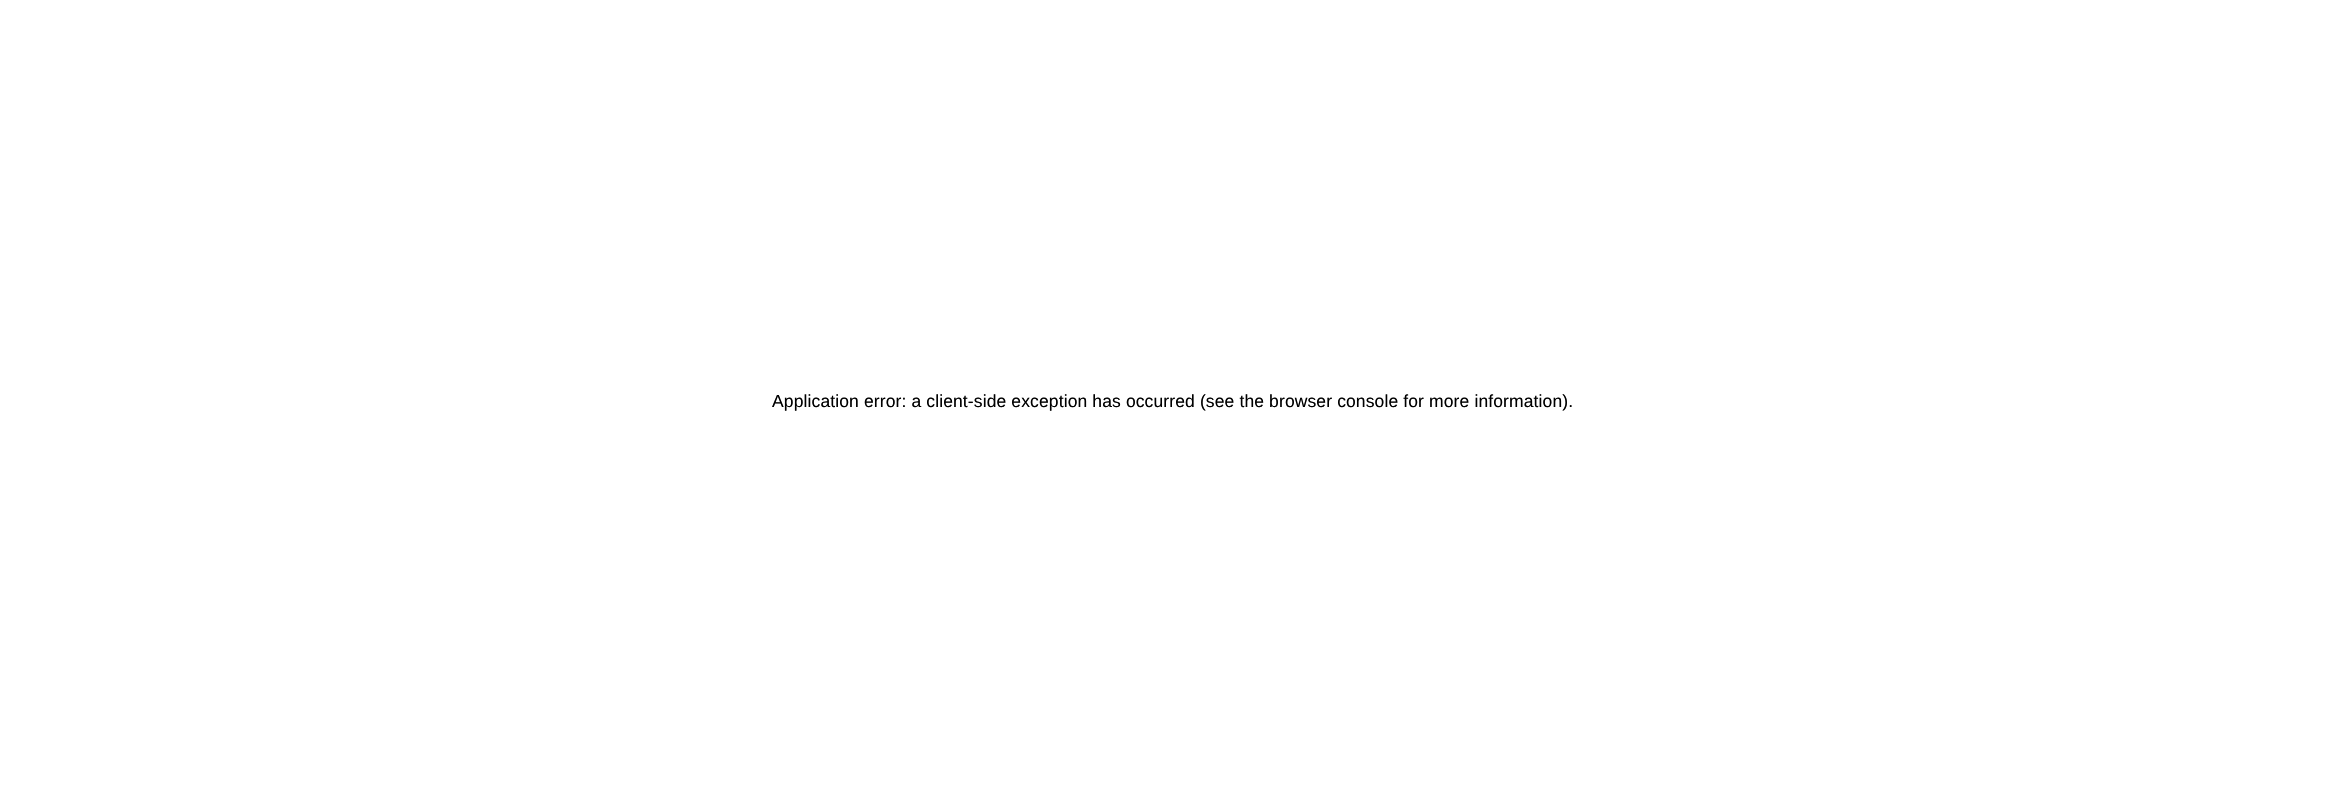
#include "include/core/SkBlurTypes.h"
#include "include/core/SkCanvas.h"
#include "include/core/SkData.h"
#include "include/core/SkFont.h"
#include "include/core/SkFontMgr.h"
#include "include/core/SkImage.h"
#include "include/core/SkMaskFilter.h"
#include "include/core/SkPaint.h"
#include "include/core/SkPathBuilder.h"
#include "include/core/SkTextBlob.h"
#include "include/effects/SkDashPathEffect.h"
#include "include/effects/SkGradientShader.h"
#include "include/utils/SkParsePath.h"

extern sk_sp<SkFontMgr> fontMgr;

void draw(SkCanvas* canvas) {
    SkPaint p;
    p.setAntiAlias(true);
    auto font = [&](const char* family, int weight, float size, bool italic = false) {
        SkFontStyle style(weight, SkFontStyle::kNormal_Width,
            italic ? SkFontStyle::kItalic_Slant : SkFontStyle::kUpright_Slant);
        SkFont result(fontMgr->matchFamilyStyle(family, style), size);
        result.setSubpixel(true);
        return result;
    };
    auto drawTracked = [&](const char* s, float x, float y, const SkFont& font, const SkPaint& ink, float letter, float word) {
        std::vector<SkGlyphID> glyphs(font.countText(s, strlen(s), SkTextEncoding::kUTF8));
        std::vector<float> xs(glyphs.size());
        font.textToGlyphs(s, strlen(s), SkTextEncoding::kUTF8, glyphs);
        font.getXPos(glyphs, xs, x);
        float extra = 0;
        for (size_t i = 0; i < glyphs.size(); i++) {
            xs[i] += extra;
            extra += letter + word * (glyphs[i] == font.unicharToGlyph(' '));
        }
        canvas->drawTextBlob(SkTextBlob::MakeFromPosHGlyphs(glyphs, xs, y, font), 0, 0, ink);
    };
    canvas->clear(0xFFFFFFFF);
    auto font1 = font("Liberation Sans", 400, 17.5f);
    p.setColor(0xFF000000);
    drawTracked("Application error: a client-side exception has occurred (see the browser console for more information).", 772, 407, font1, p, 0.12f, 0);
}
